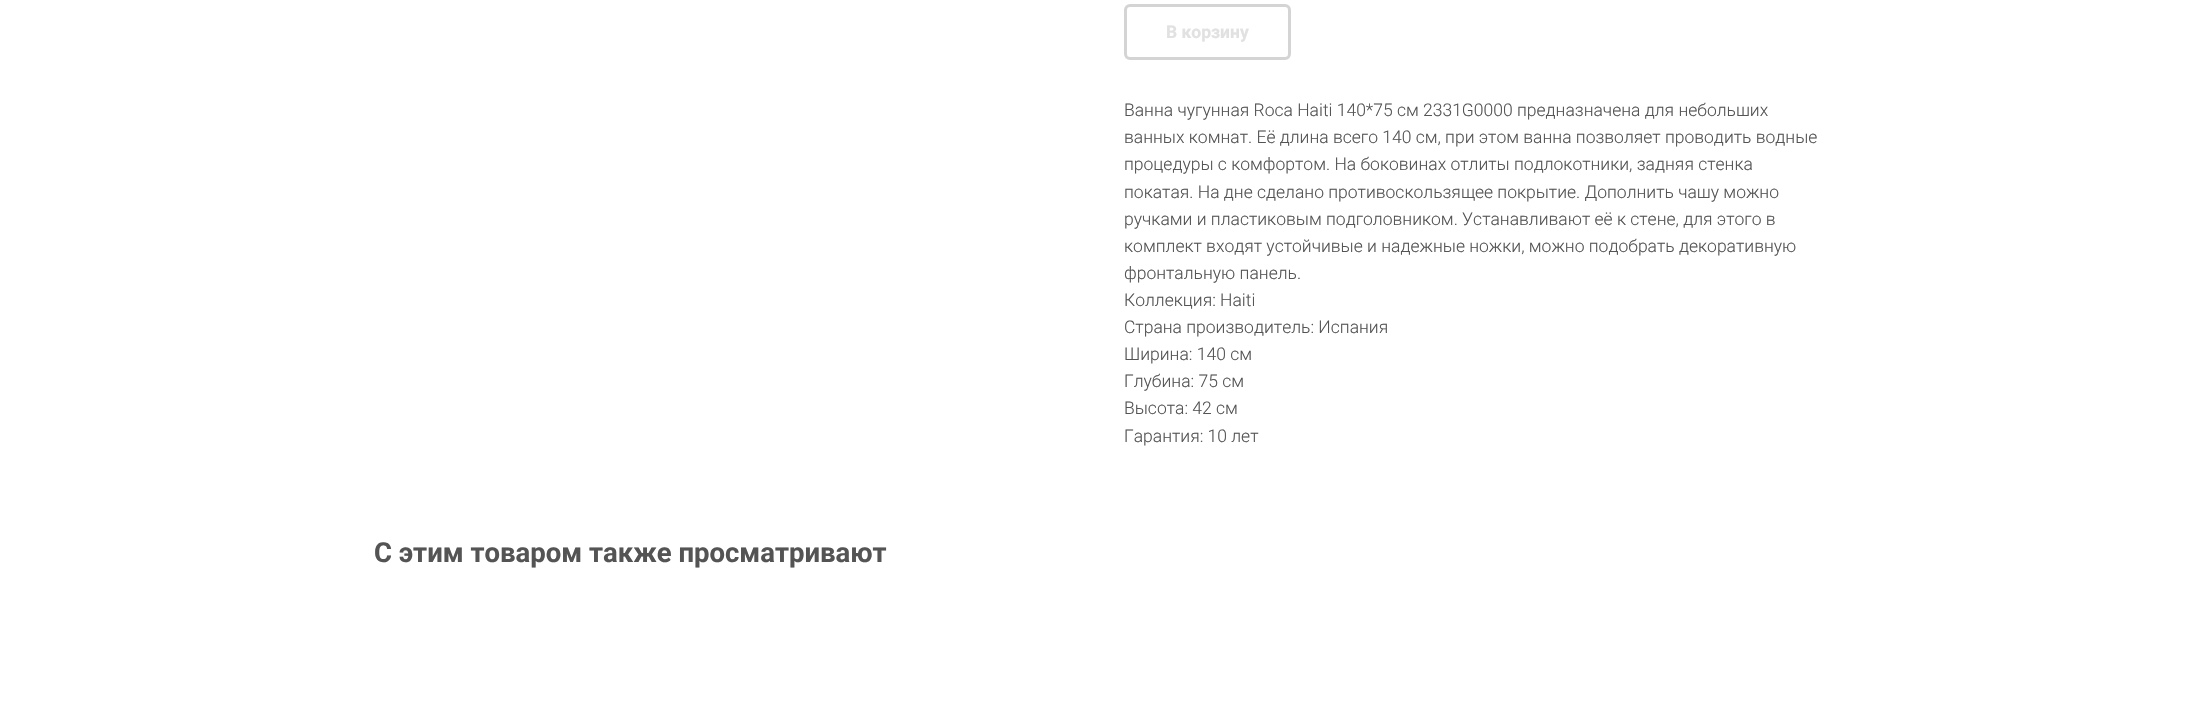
#include "include/core/SkBlurTypes.h"
#include "include/core/SkCanvas.h"
#include "include/core/SkData.h"
#include "include/core/SkFont.h"
#include "include/core/SkFontMgr.h"
#include "include/core/SkImage.h"
#include "include/core/SkMaskFilter.h"
#include "include/core/SkPaint.h"
#include "include/core/SkPathBuilder.h"
#include "include/core/SkTextBlob.h"
#include "include/effects/SkDashPathEffect.h"
#include "include/effects/SkGradientShader.h"
#include "include/utils/SkParsePath.h"

extern sk_sp<SkFontMgr> fontMgr;

void draw(SkCanvas* canvas) {
    SkPaint p;
    p.setAntiAlias(true);
    auto font = [&](const char* family, int weight, float size, bool italic = false) {
        SkFontStyle style(weight, SkFontStyle::kNormal_Width,
            italic ? SkFontStyle::kItalic_Slant : SkFontStyle::kUpright_Slant);
        SkFont result(fontMgr->matchFamilyStyle(family, style), size);
        result.setSubpixel(true);
        return result;
    };
    canvas->clear(0xFFFFFFFF);
    p.setStyle(SkPaint::kStroke_Style);
    p.setStrokeWidth(3);
    p.setColor(0xFFD4D4D4);
    canvas->drawRoundRect(SkRect::MakeLTRB(1125.5f, 5.5f, 1289.5f, 58.5f), 4.5f, 4.5f, p);
    auto font1 = font("Roboto", 700, 17.5f);
    p.setStyle(SkPaint::kFill_Style);
    p.setColor(0xFFE1E1E1);
    canvas->drawString("В корзину", 1166, 38, font1, p);
    auto font2 = font("Roboto", 300, 17.5f);
    p.setColor(0xFF545454);
    {
        const struct { const char* s; float x, y; } items[] = {
            {"Ванна чугунная Roca Haiti 140*75 см 2331G0000 предназначена для небольших", 1124, 116},
            {"ванных комнат. Её длина всего 140 см, при этом ванна позволяет проводить водные", 1124, 143},
            {"процедуры с комфортом. На боковинах отлиты подлокотники, задняя стенка", 1124, 170},
            {"покатая. На дне сделано противоскользящее покрытие. Дополнить чашу можно", 1124, 198},
            {"ручками и пластиковым подголовником. Устанавливают её к стене, для этого в", 1124, 225},
            {"комплект входят устойчивые и надежные ножки, можно подобрать декоративную", 1124, 252},
            {"фронтальную панель.", 1124, 279},
            {"Коллекция: Haiti", 1124, 306},
            {"Страна производитель: Испания", 1124, 333},
            {"Ширина: 140 см", 1124, 360},
            {"Глубина: 75 см", 1124, 387},
            {"Высота: 42 см", 1124, 414},
            {"Гарантия: 10 лет", 1124, 442},
        };
        for (auto [s, x, y] : items) {
            canvas->drawString(s, x, y, font2, p);
        }
    }
    auto font3 = font("Roboto", 700, 27.5f);
    canvas->drawString("С этим товаром также просматривают", 374, 562, font3, p);
}
